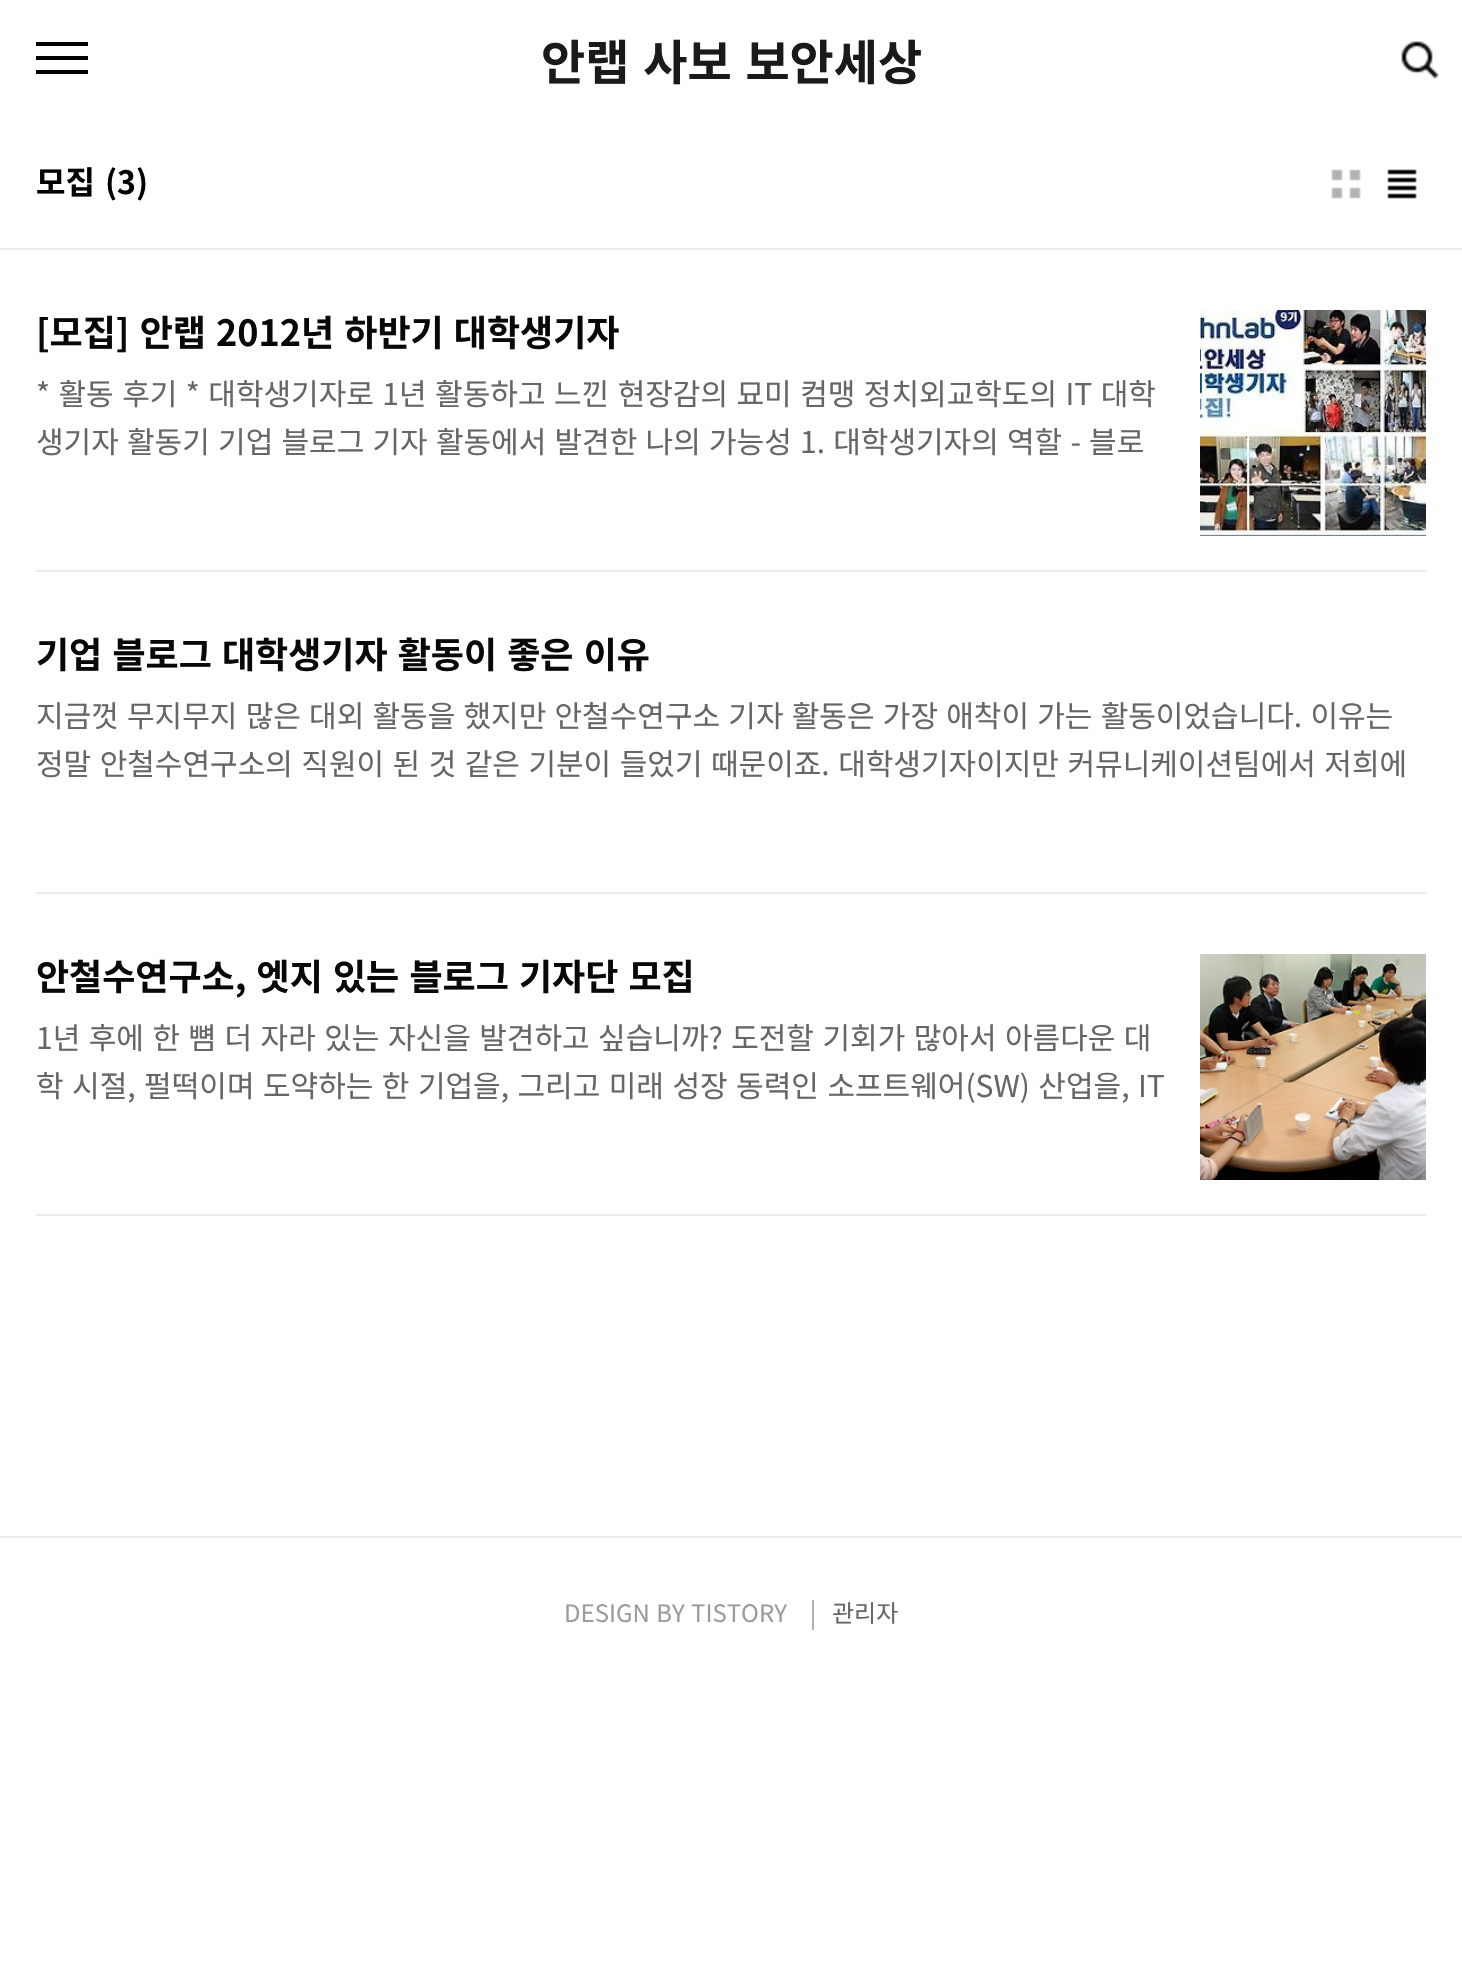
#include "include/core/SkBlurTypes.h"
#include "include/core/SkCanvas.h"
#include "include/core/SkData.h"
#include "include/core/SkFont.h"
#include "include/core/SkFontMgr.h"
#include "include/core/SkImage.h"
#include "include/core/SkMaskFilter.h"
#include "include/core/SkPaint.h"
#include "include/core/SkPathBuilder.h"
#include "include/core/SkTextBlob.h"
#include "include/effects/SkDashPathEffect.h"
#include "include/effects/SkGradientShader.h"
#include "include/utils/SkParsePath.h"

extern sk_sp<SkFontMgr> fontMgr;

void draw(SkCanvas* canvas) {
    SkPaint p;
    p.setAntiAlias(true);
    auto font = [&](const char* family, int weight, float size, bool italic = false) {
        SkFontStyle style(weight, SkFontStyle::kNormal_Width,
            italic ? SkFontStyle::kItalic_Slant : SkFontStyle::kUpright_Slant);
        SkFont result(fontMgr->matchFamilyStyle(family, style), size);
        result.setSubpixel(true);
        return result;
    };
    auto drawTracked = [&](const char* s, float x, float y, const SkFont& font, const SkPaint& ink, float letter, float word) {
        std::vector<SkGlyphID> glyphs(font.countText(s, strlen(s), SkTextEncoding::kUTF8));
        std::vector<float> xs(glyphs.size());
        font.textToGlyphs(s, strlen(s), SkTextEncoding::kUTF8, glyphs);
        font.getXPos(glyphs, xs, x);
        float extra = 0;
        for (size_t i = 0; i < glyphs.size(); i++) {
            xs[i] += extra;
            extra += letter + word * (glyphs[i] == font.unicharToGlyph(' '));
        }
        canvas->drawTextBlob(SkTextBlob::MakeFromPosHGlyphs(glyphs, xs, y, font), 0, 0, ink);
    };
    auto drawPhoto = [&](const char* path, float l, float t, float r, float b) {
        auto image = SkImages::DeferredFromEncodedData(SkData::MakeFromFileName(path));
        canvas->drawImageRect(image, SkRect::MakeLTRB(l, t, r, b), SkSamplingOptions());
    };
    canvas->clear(0xFFFFFFFF);
    {
        const struct { float l, t, r, b; SkColor color; } items[] = {
            {36, 42, 88, 46, 0xFF000000},
            {36, 56, 88, 60, 0xFF000000},
            {36, 70, 88, 74, 0xFF000000},
        };
        for (auto [l, t, r, b, color] : items) {
            p.setColor(color);
            canvas->drawRect(SkRect::MakeLTRB(l, t, r, b), p);
        }
    }
    auto font1 = font("Noto Sans KR", 700, 48);
    p.setColor(0xFF1A1A1A);
    drawTracked("안랩 사보 보안세상", 541, 80, font1, p, 0, 3);
    drawPhoto("media/1.png", 1401, 41, 1439, 79);
    p.setColor(0xFFEBEBEB);
    canvas->drawRect(SkRect::MakeLTRB(0, 248, 1462, 250), p);
    auto font2 = font("Noto Sans KR", 700, 32);
    p.setColor(0xFF000000);
    canvas->drawString("모집", 36, 194, font2, p);
    canvas->drawString("(3)", 105, 194, font2, p);
    drawPhoto("media/2.png", 1331, 169, 1361, 199);
    drawPhoto("media/3.png", 1387, 169, 1417, 199);
    p.setColor(0xFFEBEBEB);
    canvas->drawRect(SkRect::MakeLTRB(36, 570, 1426, 572), p);
    auto font3 = font("Noto Sans KR", 700, 36);
    p.setColor(0xFF080808);
    drawTracked("[모집] 안랩 2012년 하반기 대학생기자", 36, 346, font3, p, 0, 2);
    drawPhoto("media/4.png", 1200, 310, 1426, 536);
    auto font4 = font("Noto Sans KR", 400, 30);
    p.setColor(0xFF666666);
    drawTracked("* 활동 후기 * 대학생기자로 1년 활동하고 느낀 현장감의 묘미 컴맹 정치외교학도의 IT 대학", 36, 405, font4, p, 0, 1.75f);
    drawTracked("생기자 활동기 기업 블로그 기자 활동에서 발견한 나의 가능성 1. 대학생기자의 역할 - 블로", 36, 453, font4, p, 0, 1.5f);
    p.setColor(0xFFEBEBEB);
    canvas->drawRect(SkRect::MakeLTRB(36, 892, 1426, 894), p);
    p.setColor(0xFF080808);
    drawTracked("기업 블로그 대학생기자 활동이 좋은 이유", 36, 668, font3, p, 0, 2);
    p.setColor(0xFF666666);
    drawTracked("지금껏 무지무지 많은 대외 활동을 했지만 안철수연구소 기자 활동은 가장 애착이 가는 활동이었습니다. 이유는", 36, 727, font4, p, 0, 1.5f);
    drawTracked("정말 안철수연구소의 직원이 된 것 같은 기분이 들었기 때문이죠. 대학생기자이지만 커뮤니케이션팀에서 저희에", 36, 775, font4, p, 0, 1.75f);
    p.setColor(0xFFEBEBEB);
    canvas->drawRect(SkRect::MakeLTRB(36, 1214, 1426, 1216), p);
    p.setColor(0xFF080808);
    drawTracked("안철수연구소, 엣지 있는 블로그 기자단 모집", 36, 990, font3, p, 0, 2);
    drawPhoto("media/5.png", 1200, 954, 1426, 1180);
    p.setColor(0xFF666666);
    drawTracked("1년 후에 한 뼘 더 자라 있는 자신을 발견하고 싶습니까? 도전할 기회가 많아서 아름다운 대", 36, 1049, font4, p, 0, 1.75f);
    drawTracked("학 시절, 펄떡이며 도약하는 한 기업을, 그리고 미래 성장 동력인 소프트웨어(SW) 산업을, IT", 36, 1097, font4, p, 0, 1.75f);
    p.setColor(0xFFEBEBEB);
    canvas->drawRect(SkRect::MakeLTRB(0, 1536, 1462, 1538), p);
    auto font5 = font("Noto Sans KR", 400, 24);
    p.setColor(0xFF9B9B9B);
    drawTracked("DESIGN BY", 564, 1622, font5, p, 0, 1);
    canvas->drawString("TISTORY", 691, 1622, font5, p);
    p.setColor(0xFFB2B2B2);
    canvas->drawRect(SkRect::MakeLTRB(812, 1600, 814, 1630), p);
    p.setColor(0xFF666666);
    canvas->drawString("관리자", 832, 1622, font5, p);
}
